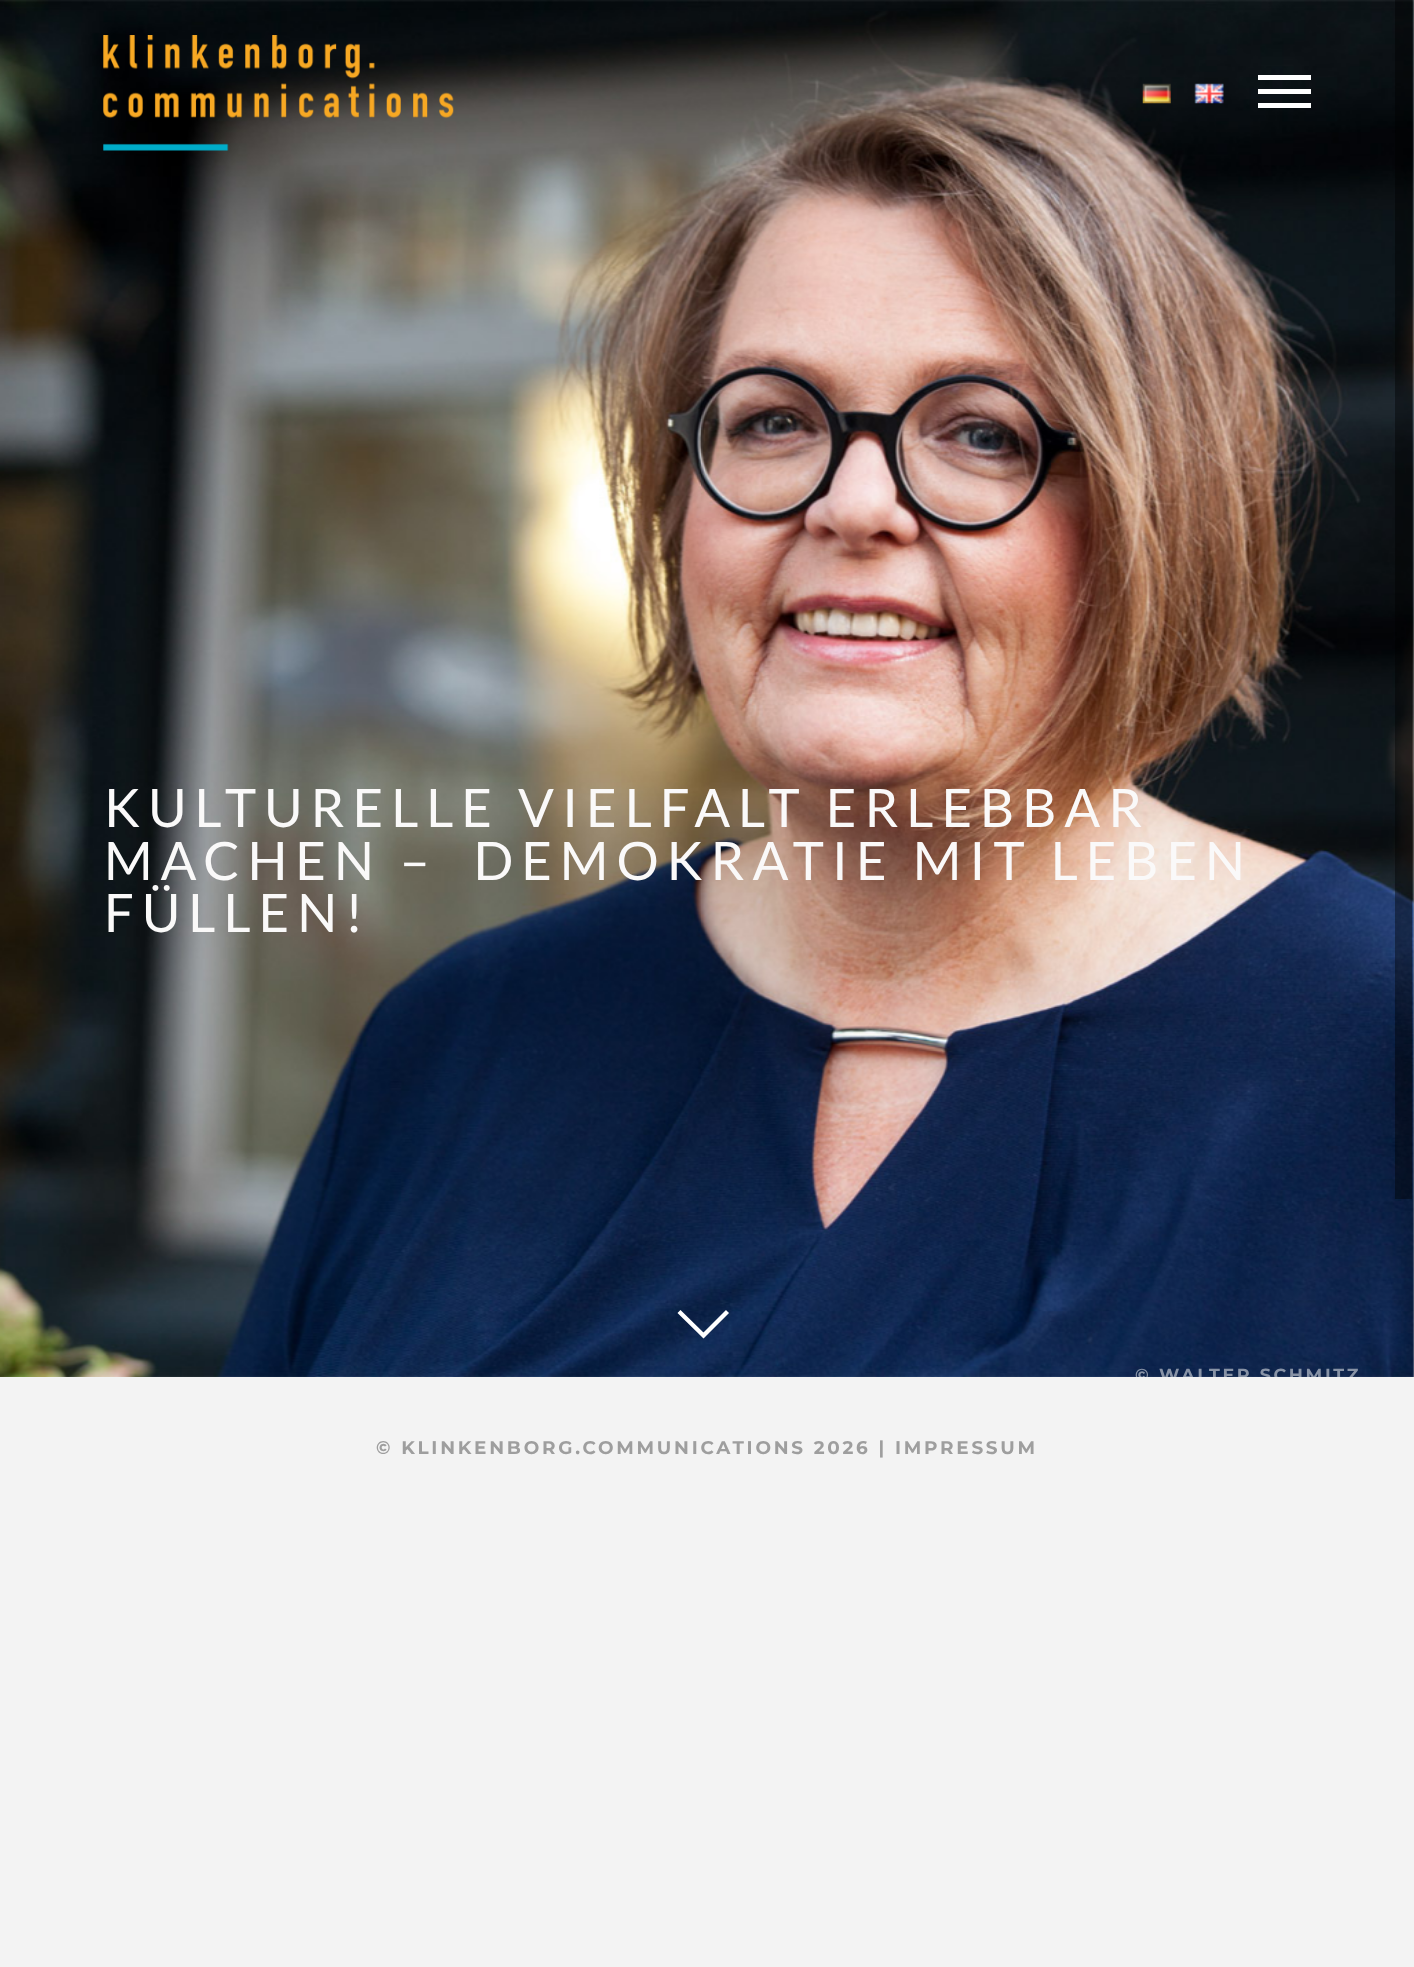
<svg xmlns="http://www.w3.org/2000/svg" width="1414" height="1967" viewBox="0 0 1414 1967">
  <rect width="100%" height="100%" fill="rgb(243,243,243)"/>
  <image x="0" y="0" width="1414" height="1377" href="pic4.png"/>
  <image x="103" y="35" width="351" height="116" href="pic1.png"/>
  <image x="1142" y="83" width="29" height="21" href="pic2.png"/>
  <image x="1194" y="83" width="30" height="21" href="pic3.png"/>
  <rect x="1258" y="89" width="53" height="5" fill="rgb(255,255,255)"/>
  <rect x="1258" y="75" width="53" height="5" fill="rgb(255,255,255)"/>
  <rect x="1258" y="103" width="53" height="5" fill="rgb(255,255,255)"/>
  <g font-family="Lato" font-size="52.9" letter-spacing="7.9" fill="rgb(250,249,249)">
    <text xml:space="preserve"><tspan x="104" y="827">KULTURELLE VIELFALT ERLEBBAR</tspan><tspan x="104" y="880">MACHEN –  DEMOKRATIE MIT LEBEN</tspan><tspan x="104" y="932">FÜLLEN!</tspan></text>
  </g>
  <path d="M727.5 1311.5L703.5 1335.5L679 1311.5" fill="none" stroke="rgb(255,255,255)" stroke-width="4.3"/>
  <text x="1135" y="1381" font-family="Montserrat" font-size="17.5" font-weight="100" letter-spacing="2.6" fill="rgb(136,147,166)">© WALTER SCHMITZ</text>
  <rect x="1395" y="0" width="17" height="1199" fill="rgba(0,0,0,0.4)"/>
  <rect x="1136" y="1377" width="223" height="5" fill="rgb(243,243,243)"/>
  <text x="376" y="1454" font-family="Montserrat" font-size="18.4" font-weight="100" letter-spacing="2.75" fill="rgb(158,158,158)">© KLINKENBORG.COMMUNICATIONS 2026 | IMPRESSUM</text>
</svg>
